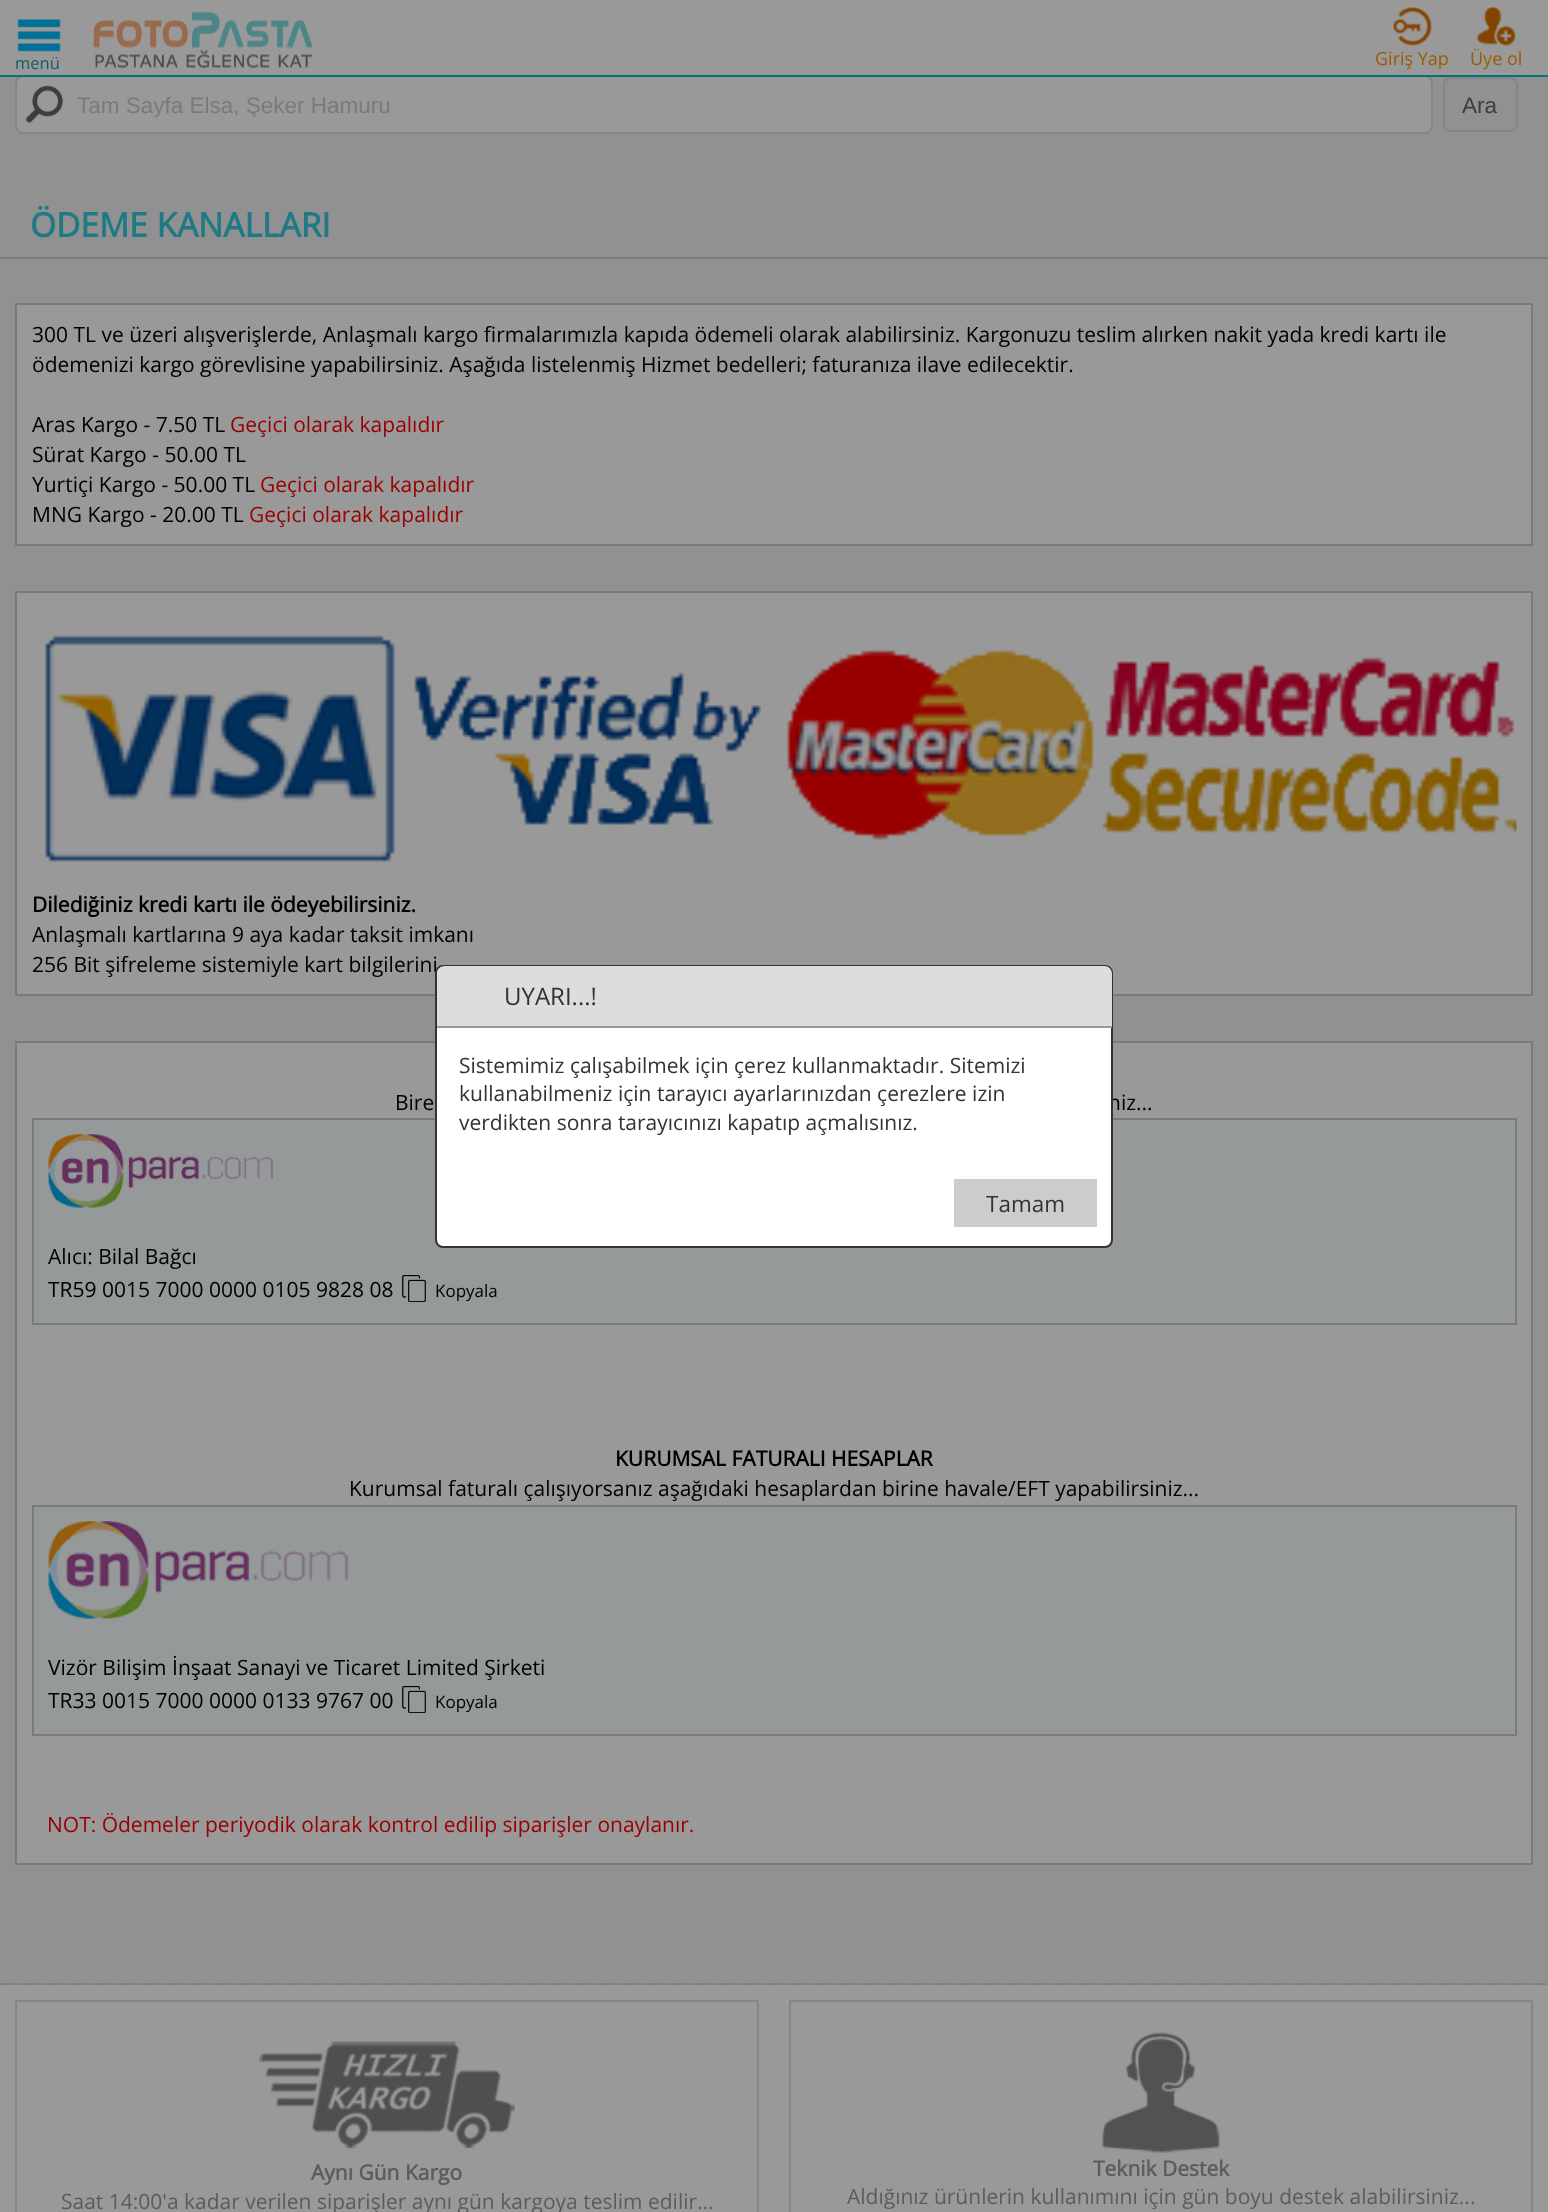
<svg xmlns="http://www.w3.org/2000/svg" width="1548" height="2212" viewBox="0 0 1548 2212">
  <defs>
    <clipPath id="clip1"><rect x="77" y="92" width="1323" height="25"/></clipPath>
  </defs>
  <rect width="100%" height="100%" fill="rgb(153,153,153)"/>
  <rect x="0" y="77" width="1548" height="1906" fill="rgb(145,145,145)"/>
  <rect x="15" y="75" width="1418" height="59" rx="8" fill="rgb(153,153,153)"/>
  <image x="25" y="85" width="38" height="38" href="pic5.png"/>
  <rect x="16" y="76" width="1416" height="57" rx="7" fill="none" stroke="rgb(133,133,133)" stroke-width="2"/>
  <rect x="0" y="75" width="1548" height="2" fill="rgb(4,115,119)"/>
  <image x="17" y="19" width="44" height="33" href="pic1.png"/>
  <text x="15" y="69" font-family="Open Sans" font-size="16.5" fill="rgb(20,92,102)">menü</text>
  <image x="93" y="11" width="220" height="58" href="pic2.png"/>
  <image x="1393" y="7" width="39" height="39" href="pic3.png"/>
  <text x="1375" y="65" font-family="Open Sans" font-size="18" fill="rgb(153,92,0)">Giriş Yap</text>
  <image x="1477" y="7" width="39" height="39" href="pic4.png"/>
  <text x="1470" y="65" font-family="Open Sans" font-size="18" fill="rgb(153,92,0)">Üye ol</text>
  <g clip-path="url(#clip1)">
    <text x="77" y="113" font-family="Liberation Sans" font-size="22.5" fill="rgb(122,122,122)">Tam Sayfa Elsa, Şeker Hamuru</text>
  </g>
  <rect x="1444" y="78" width="73" height="53" rx="7" fill="none" stroke="rgb(133,133,133)" stroke-width="2"/>
  <text x="1462" y="113" font-family="Liberation Sans" font-size="22.5" fill="rgb(61,61,61)">Ara</text>
  <rect x="0" y="257" width="1548" height="2" fill="rgb(122,122,122)"/>
  <text x="30" y="237" font-family="Open Sans" font-size="33.5" font-weight="bold" fill="rgb(31,122,133)">ÖDEME KANALLARI</text>
  <rect x="16" y="304" width="1516" height="241" fill="rgb(153,153,153)" stroke="rgb(122,122,122)" stroke-width="2"/>
  <g font-family="Open Sans" font-size="21" fill="rgb(0,0,0)">
    <text>
      <tspan x="32" y="342">300 TL ve üzeri alışverişlerde, Anlaşmalı kargo firmalarımızla kapıda ödemeli olarak alabilirsiniz. Kargonuzu teslim alırken nakit yada kredi kartı ile</tspan>
      <tspan x="32" y="372">ödemenizi kargo görevlisine yapabilirsiniz. Aşağıda listelenmiş Hizmet bedelleri; faturanıza ilave edilecektir.</tspan>
    </text>
    <text x="32" y="432">Aras Kargo - 7.50 TL</text>
  </g>
  <text x="230" y="432" font-family="Open Sans" font-size="21" fill="rgb(153,0,0)">Geçici olarak kapalıdır</text>
  <g font-family="Open Sans" font-size="21" fill="rgb(0,0,0)">
    <text>
      <tspan x="32" y="462">Sürat Kargo - 50.00 TL</tspan>
      <tspan x="32" y="492">Yurtiçi Kargo - 50.00 TL</tspan>
    </text>
  </g>
  <text x="260" y="492" font-family="Open Sans" font-size="21" fill="rgb(153,0,0)">Geçici olarak kapalıdır</text>
  <text x="32" y="522" font-family="Open Sans" font-size="21" fill="rgb(0,0,0)">MNG Kargo - 20.00 TL</text>
  <text x="249" y="522" font-family="Open Sans" font-size="21" fill="rgb(153,0,0)">Geçici olarak kapalıdır</text>
  <rect x="16" y="592" width="1516" height="403" fill="rgb(153,153,153)" stroke="rgb(122,122,122)" stroke-width="2"/>
  <image x="45" y="635" width="1472" height="227" href="pic6.png"/>
  <text x="32" y="912" font-family="Open Sans" font-size="21" font-weight="bold" fill="rgb(0,0,0)">Dilediğiniz kredi kartı ile ödeyebilirsiniz.</text>
  <g font-family="Open Sans" font-size="21" fill="rgb(0,0,0)">
    <text>
      <tspan x="32" y="942">Anlaşmalı kartlarına 9 aya kadar taksit imkanı</tspan>
      <tspan x="32" y="972">256 Bit şifreleme sistemiyle kart bilgilerini</tspan>
    </text>
  </g>
  <rect x="16" y="1042" width="1516" height="822" fill="rgb(153,153,153)" stroke="rgb(122,122,122)" stroke-width="2"/>
  <g font-family="Open Sans" font-size="21" fill="rgb(0,0,0)">
    <text x="395" y="1110">Bire</text>
    <text x="1108" y="1110">niz...</text>
  </g>
  <rect x="33" y="1119" width="1483" height="205" fill="rgb(149,153,153)" stroke="rgb(122,122,122)" stroke-width="2"/>
  <image x="48" y="1134" width="225" height="74" href="pic7.png"/>
  <g font-family="Open Sans" font-size="21" fill="rgb(0,0,0)">
    <text>
      <tspan x="48" y="1264">Alıcı: Bilal Bağcı</tspan>
      <tspan x="48" y="1297">TR59 0015 7000 0000 0105 9828 08</tspan>
    </text>
  </g>
  <image x="402" y="1275" width="24" height="27" href="pic8.png"/>
  <text x="435" y="1297" font-family="Open Sans" font-size="17" fill="rgb(0,0,0)">Kopyala</text>
  <text x="615" y="1466" font-family="Open Sans" font-size="21" font-weight="bold" fill="rgb(0,0,0)">KURUMSAL FATURALI HESAPLAR</text>
  <text x="349" y="1496" font-family="Open Sans" font-size="21" fill="rgb(0,0,0)">Kurumsal faturalı çalışıyorsanız aşağıdaki hesaplardan birine havale/EFT yapabilirsiniz...</text>
  <rect x="33" y="1506" width="1483" height="229" fill="rgb(149,153,153)" stroke="rgb(122,122,122)" stroke-width="2"/>
  <image x="48" y="1521" width="300" height="98" href="pic9.png"/>
  <g font-family="Open Sans" font-size="21" fill="rgb(0,0,0)">
    <text>
      <tspan x="48" y="1675">Vizör Bilişim İnşaat Sanayi ve Ticaret Limited Şirketi</tspan>
      <tspan x="48" y="1708">TR33 0015 7000 0000 0133 9767 00</tspan>
    </text>
  </g>
  <image x="402" y="1686" width="24" height="27" href="pic8.png"/>
  <text x="435" y="1708" font-family="Open Sans" font-size="17" fill="rgb(0,0,0)">Kopyala</text>
  <text x="47" y="1832" font-family="Open Sans" font-size="21" fill="rgb(153,0,0)">NOT: Ödemeler periyodik olarak kontrol edilip siparişler onaylanır.</text>
  <path d="M0 1984H1548" fill="none" stroke="rgb(92,92,92)" stroke-width="1.5" stroke-dasharray="1.5 1.5"/>
  <rect x="16" y="2001" width="742" height="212" fill="none" stroke="rgb(133,133,133)" stroke-width="2"/>
  <image x="259" y="2041" width="256" height="108" href="pic10.png"/>
  <text x="311" y="2180" font-family="Open Sans" font-size="21" font-weight="bold" fill="rgb(92,92,92)">Aynı Gün Kargo</text>
  <text x="61" y="2209" font-family="Open Sans" font-size="21" fill="rgb(92,92,92)">Saat 14:00'a kadar verilen siparişler aynı gün kargoya teslim edilir...</text>
  <rect x="790" y="2001" width="742" height="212" fill="none" stroke="rgb(133,133,133)" stroke-width="2"/>
  <image x="1102" y="2032" width="118" height="121" href="pic11.png"/>
  <text x="1093" y="2176" font-family="Open Sans" font-size="21" font-weight="bold" fill="rgb(92,92,92)">Teknik Destek</text>
  <text x="847" y="2204" font-family="Open Sans" font-size="21" fill="rgb(92,92,92)">Aldığınız ürünlerin kullanımını için gün boyu destek alabilirsiniz...</text>
  <rect x="436" y="966" width="676" height="281" rx="7" fill="rgb(255,255,255)" stroke="rgb(51,51,51)" stroke-width="2"/>
  <path d="M445 966H1104C1108.5 966 1112 969.5 1112 974V1028H437V974C437 969.5 440.5 966 445 966Z" fill="rgb(221,221,221)"/>
  <rect x="437" y="1026" width="675" height="2" fill="rgb(153,153,153)"/>
  <text x="504" y="1005" font-family="Open Sans" font-size="24" fill="rgb(51,51,51)">UYARI...!</text>
  <g font-family="Open Sans" font-size="21" fill="rgb(51,51,51)">
    <text>
      <tspan x="459" y="1073">Sistemimiz çalışabilmek için çerez kullanmaktadır. Sitemizi</tspan>
      <tspan x="459" y="1101">kullanabilmeniz için tarayıcı ayarlarınızdan çerezlere izin</tspan>
      <tspan x="459" y="1130">verdikten sonra tarayıcınızı kapatıp açmalısınız.</tspan>
    </text>
  </g>
  <rect x="954" y="1179" width="143" height="48" fill="rgb(204,204,204)"/>
  <text x="986" y="1212" font-family="Open Sans" font-size="22.5" fill="rgb(51,51,51)">Tamam</text>
</svg>
